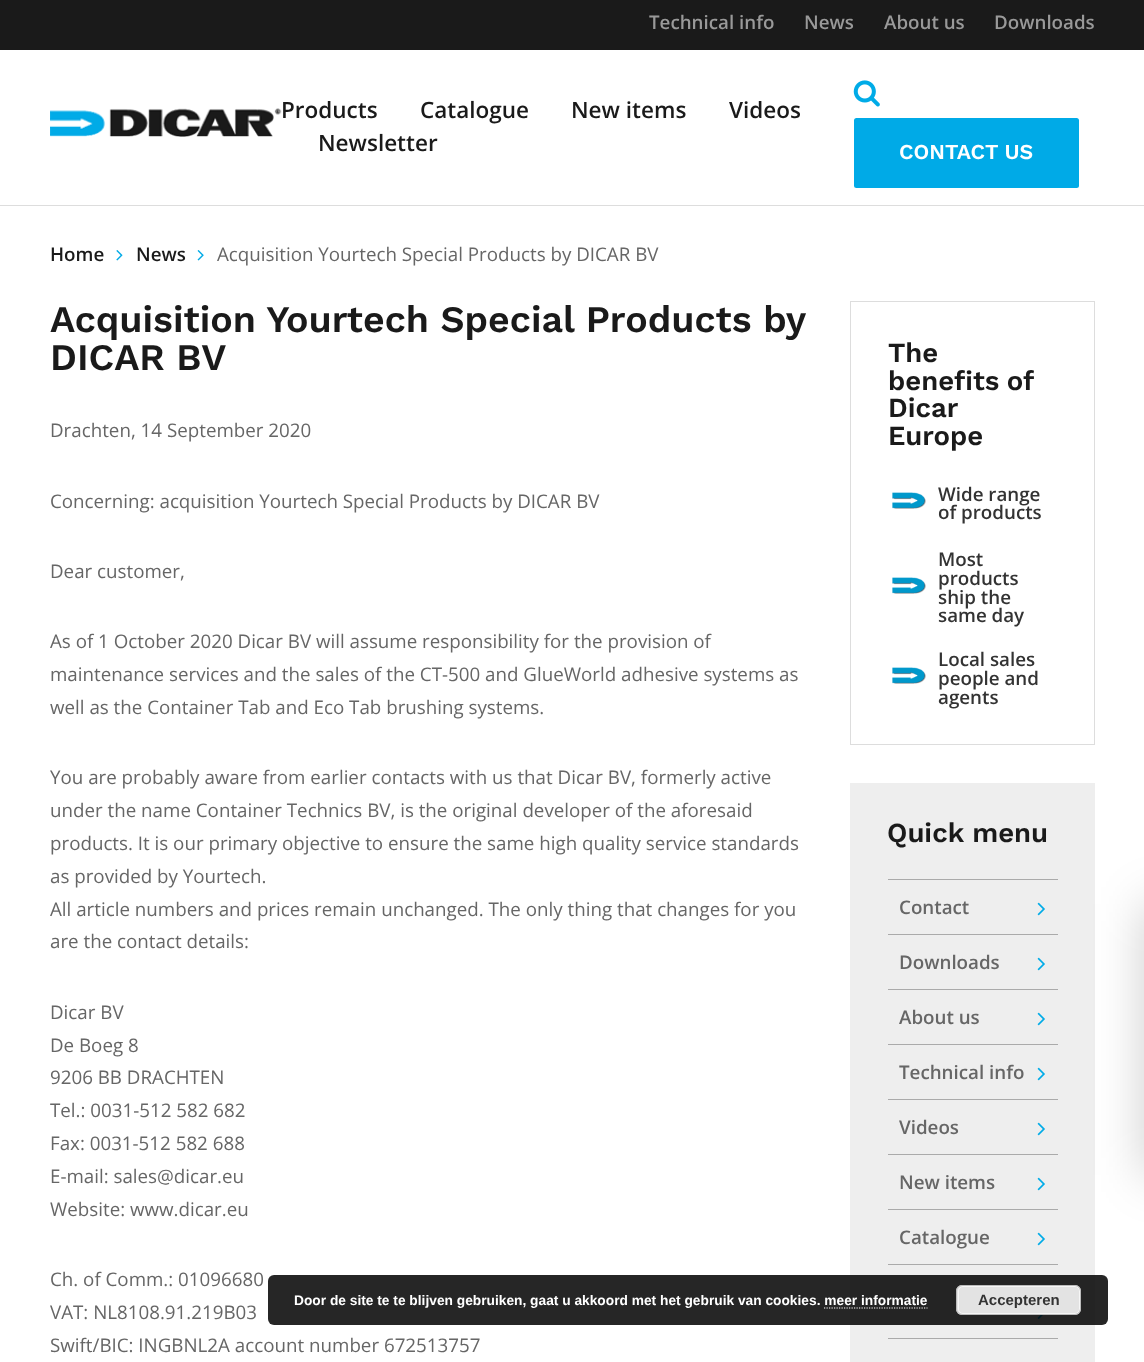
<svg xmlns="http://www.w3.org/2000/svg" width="1144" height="1362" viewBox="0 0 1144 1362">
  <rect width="100%" height="100%" fill="rgb(255,255,255)"/>
  <rect x="0" y="0" width="1144" height="50" fill="rgb(26,26,26)"/>
  <g font-family="Open Sans" font-size="18.75" font-weight="600" fill="rgb(153,153,153)">
    <text x="649" y="29">Technical info</text>
    <text x="804" y="29">News</text>
    <text x="884" y="29">About us</text>
    <text x="994" y="29">Downloads</text>
  </g>
  <rect x="0" y="205" width="1144" height="1" fill="rgb(221,221,221)"/>
  <image x="50" y="108" width="232" height="29" href="pic1.png"/>
  <g font-family="Open Sans" font-size="22.5" font-weight="600" fill="rgb(26,26,26)">
    <text x="281" y="118">Products</text>
    <text x="420" y="118">Catalogue</text>
    <text x="571" y="118">New items</text>
    <text x="729" y="118">Videos</text>
    <text x="318" y="151">Newsletter</text>
  </g>
  <image x="853" y="80" width="27" height="27" href="pic2.png"/>
  <rect x="854" y="118" width="225" height="70" rx="2.5" fill="rgb(0,170,231)"/>
  <text x="899" y="159" font-family="Work Sans" font-size="21.25" font-weight="600" fill="rgb(255,255,255)">CONTACT US</text>
  <text x="50" y="261" font-family="Open Sans" font-size="18.75" font-weight="600" fill="rgb(26,26,26)">Home</text>
  <image x="116" y="250" width="7" height="11" href="pic3.png"/>
  <text x="136" y="261" font-family="Open Sans" font-size="18.75" font-weight="600" fill="rgb(26,26,26)">News</text>
  <image x="197" y="250" width="7" height="11" href="pic4.png"/>
  <text x="217" y="261" font-family="Open Sans" font-size="18.75" fill="rgb(102,102,102)">Acquisition Yourtech Special Products by DICAR BV</text>
  <g font-family="Work Sans" font-size="37.5" font-weight="600" fill="rgb(26,26,26)">
    <text>
      <tspan x="50" y="332">Acquisition Yourtech Special Products by</tspan>
      <tspan x="50" y="370">DICAR BV</tspan>
    </text>
  </g>
  <g font-family="Open Sans" font-size="18.75" fill="rgb(102,102,102)">
    <text x="50" y="437">Drachten, 14 September 2020</text>
    <text x="50" y="508">Concerning: acquisition Yourtech Special Products by DICAR BV</text>
    <text x="50" y="578">Dear customer,</text>
    <text>
      <tspan x="50" y="648">As of 1 October 2020 Dicar BV will assume responsibility for the provision of</tspan>
      <tspan x="50" y="681">maintenance services and the sales of the CT-500 and GlueWorld adhesive systems as</tspan>
      <tspan x="50" y="714">well as the Container Tab and Eco Tab brushing systems.</tspan>
    </text>
    <text>
      <tspan x="50" y="784">You are probably aware from earlier contacts with us that Dicar BV, formerly active</tspan>
      <tspan x="50" y="817">under the name Container Technics BV, is the original developer of the aforesaid</tspan>
      <tspan x="50" y="850">products. It is our primary objective to ensure the same high quality service standards</tspan>
      <tspan x="50" y="883">as provided by Yourtech.</tspan>
      <tspan x="50" y="916">All article numbers and prices remain unchanged. The only thing that changes for you</tspan>
      <tspan x="50" y="948">are the contact details:</tspan>
    </text>
    <text>
      <tspan x="50" y="1019">Dicar BV</tspan>
      <tspan x="50" y="1052">De Boeg 8</tspan>
      <tspan x="50" y="1084">9206 BB DRACHTEN</tspan>
      <tspan x="50" y="1117">Tel.: 0031-512 582 682</tspan>
      <tspan x="50" y="1150">Fax: 0031-512 582 688</tspan>
      <tspan x="50" y="1183">E-mail: sales@dicar.eu</tspan>
      <tspan x="50" y="1216">Website: www.dicar.eu</tspan>
    </text>
    <text>
      <tspan x="50" y="1286">Ch. of Comm.: 01096680</tspan>
      <tspan x="50" y="1319">VAT: NL8108.91.219B03</tspan>
      <tspan x="50" y="1352">Swift/BIC: INGBNL2A account number 672513757</tspan>
    </text>
  </g>
  <rect x="850.5" y="301.5" width="244" height="443" fill="none" stroke="rgb(221,221,221)"/>
  <g font-family="Work Sans" font-size="27.5" font-weight="600" fill="rgb(26,26,26)">
    <text>
      <tspan x="888" y="362">The</tspan>
      <tspan x="888" y="390" word-spacing="-1">benefits of</tspan>
      <tspan x="888" y="417">Dicar</tspan>
      <tspan x="888" y="445">Europe</tspan>
    </text>
  </g>
  <image x="892" y="492" width="34" height="17" href="pic5.png"/>
  <g font-family="Open Sans" font-size="18.75" font-weight="600" fill="rgb(51,51,51)">
    <text>
      <tspan x="938" y="501">Wide range</tspan>
      <tspan x="938" y="519">of products</tspan>
    </text>
  </g>
  <image x="892" y="577" width="34" height="17" href="pic6.png"/>
  <g font-family="Open Sans" font-size="18.75" font-weight="600" fill="rgb(51,51,51)">
    <text>
      <tspan x="938" y="566">Most</tspan>
      <tspan x="938" y="585">products</tspan>
      <tspan x="938" y="604">ship the</tspan>
      <tspan x="938" y="622">same day</tspan>
    </text>
  </g>
  <image x="892" y="667" width="34" height="17" href="pic5.png"/>
  <g font-family="Open Sans" font-size="18.75" font-weight="600" fill="rgb(51,51,51)">
    <text>
      <tspan x="938" y="666">Local sales</tspan>
      <tspan x="938" y="685">people and</tspan>
      <tspan x="938" y="704">agents</tspan>
    </text>
  </g>
  <rect x="850" y="783" width="245" height="579" fill="rgb(238,238,238)"/>
  <text x="887" y="842" font-family="Work Sans" font-size="27.5" font-weight="600" fill="rgb(26,26,26)">Quick menu</text>
  <rect x="888" y="879" width="170" height="1" fill="rgb(170,170,170)"/>
  <rect x="888" y="934" width="170" height="1" fill="rgb(170,170,170)"/>
  <text x="899" y="914" font-family="Open Sans" font-size="18.75" font-weight="600" fill="rgb(102,102,102)">Contact</text>
  <image x="1037" y="902" width="8" height="14" href="pic7.png"/>
  <rect x="888" y="989" width="170" height="1" fill="rgb(170,170,170)"/>
  <text x="899" y="969" font-family="Open Sans" font-size="18.75" font-weight="600" fill="rgb(102,102,102)">Downloads</text>
  <image x="1037" y="957" width="8" height="14" href="pic7.png"/>
  <rect x="888" y="1044" width="170" height="1" fill="rgb(170,170,170)"/>
  <text x="899" y="1024" font-family="Open Sans" font-size="18.75" font-weight="600" fill="rgb(102,102,102)">About us</text>
  <image x="1037" y="1012" width="8" height="14" href="pic7.png"/>
  <rect x="888" y="1099" width="170" height="1" fill="rgb(170,170,170)"/>
  <text x="899" y="1079" font-family="Open Sans" font-size="18.75" font-weight="600" fill="rgb(102,102,102)">Technical info</text>
  <image x="1037" y="1067" width="8" height="14" href="pic7.png"/>
  <rect x="888" y="1154" width="170" height="1" fill="rgb(170,170,170)"/>
  <text x="899" y="1134" font-family="Open Sans" font-size="18.75" font-weight="600" fill="rgb(102,102,102)">Videos</text>
  <image x="1037" y="1122" width="8" height="14" href="pic7.png"/>
  <rect x="888" y="1209" width="170" height="1" fill="rgb(170,170,170)"/>
  <text x="899" y="1189" font-family="Open Sans" font-size="18.75" font-weight="600" fill="rgb(102,102,102)">New items</text>
  <image x="1037" y="1177" width="8" height="14" href="pic7.png"/>
  <rect x="888" y="1264" width="170" height="1" fill="rgb(170,170,170)"/>
  <text x="899" y="1244" font-family="Open Sans" font-size="18.75" font-weight="600" fill="rgb(102,102,102)">Catalogue</text>
  <image x="1037" y="1232" width="8" height="14" href="pic7.png"/>
  <rect x="888" y="1338" width="170" height="1" fill="rgb(170,170,170)"/>
  <image x="1037" y="1315" width="6" height="4" href="pic8.png"/>
  <rect x="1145" y="904" width="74" height="271" fill="rgba(0,0,0,0.2)" filter="blur(25px)"/>
  <rect x="268" y="1275" width="840" height="50" rx="6" fill="rgba(0,0,0,0.85)"/>
  <text x="294" y="1305" font-family="Liberation Sans" font-size="13.75" font-weight="bold" fill="rgb(255,255,255)">Door de site te te blijven gebruiken, gaat u akkoord met het gebruik van cookies. meer informatie</text>
  <rect x="956" y="1285" width="125" height="30" rx="6" fill="rgb(227,227,227)"/>
  <rect x="958.5" y="1286.5" width="121" height="27" rx="4.5" fill="none" stroke="rgb(246,246,246)"/>
  <rect x="956.5" y="1285.5" width="124" height="29" rx="5.5" fill="none" stroke="rgb(187,187,187)"/>
  <text x="978" y="1305" font-family="Liberation Sans" font-size="15" font-weight="bold" fill="rgb(51,51,51)">Accepteren</text>
  <path d="M824 1308H927.5" fill="none" stroke="rgb(255,255,255)" stroke-width="1.2" stroke-dasharray="1.25 1.25"/>
</svg>
